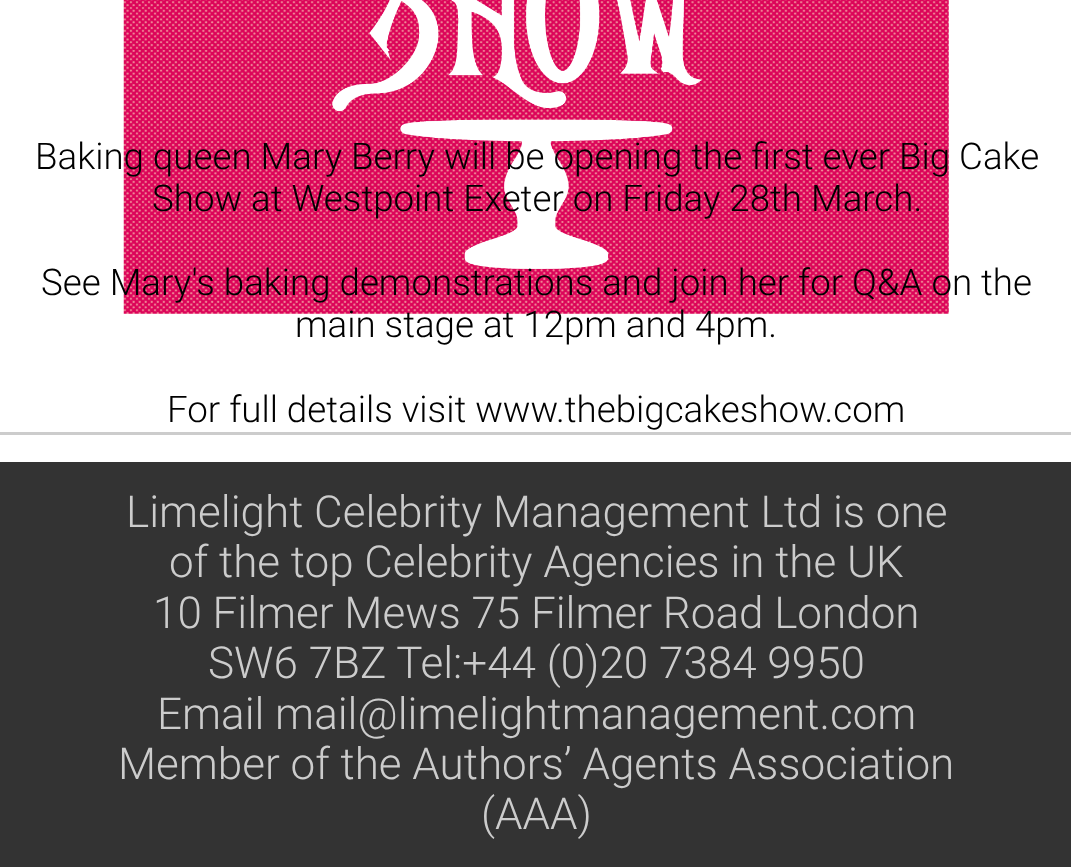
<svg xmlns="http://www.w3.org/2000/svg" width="1071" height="867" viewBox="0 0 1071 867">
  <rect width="100%" height="100%" fill="rgb(255,255,255)"/>
  <rect x="0" y="432" width="1071" height="3" fill="rgb(204,204,204)"/>
  <image x="123" y="0" width="826" height="314" href="pic1.png"/>
  <g font-family="Roboto" font-size="36.7" font-weight="300" fill="rgb(0,0,0)">
    <text x="35" y="169">Baking queen Mary Berry will be opening the first ever Big Cake</text>
    <text x="152" y="211">Show at Westpoint Exeter on Friday 28th March.</text>
    <text x="41" y="295">See Mary's baking demonstrations and join her for Q&amp;A on the</text>
    <text x="295" y="337">main stage at 12pm and 4pm.</text>
    <text x="167" y="422">For full details visit www.thebigcakeshow.com</text>
  </g>
  <rect x="0" y="462" width="1071" height="405" fill="rgb(51,51,51)"/>
  <g font-family="Roboto" font-size="44" font-weight="300" fill="rgb(204,204,204)">
    <text x="126" y="527">Limelight Celebrity Management Ltd is one</text>
    <text x="169" y="577">of the top Celebrity Agencies in the UK</text>
    <text x="153" y="628">10 Filmer Mews 75 Filmer Road London</text>
    <text x="208" y="678">SW6 7BZ Tel:+44 (0)20 7384 9950</text>
    <text x="157" y="729">Email mail@limelightmanagement.com</text>
    <text x="118" y="779">Member of the Authors’ Agents Association</text>
    <text x="481" y="829">(AAA)</text>
  </g>
</svg>
